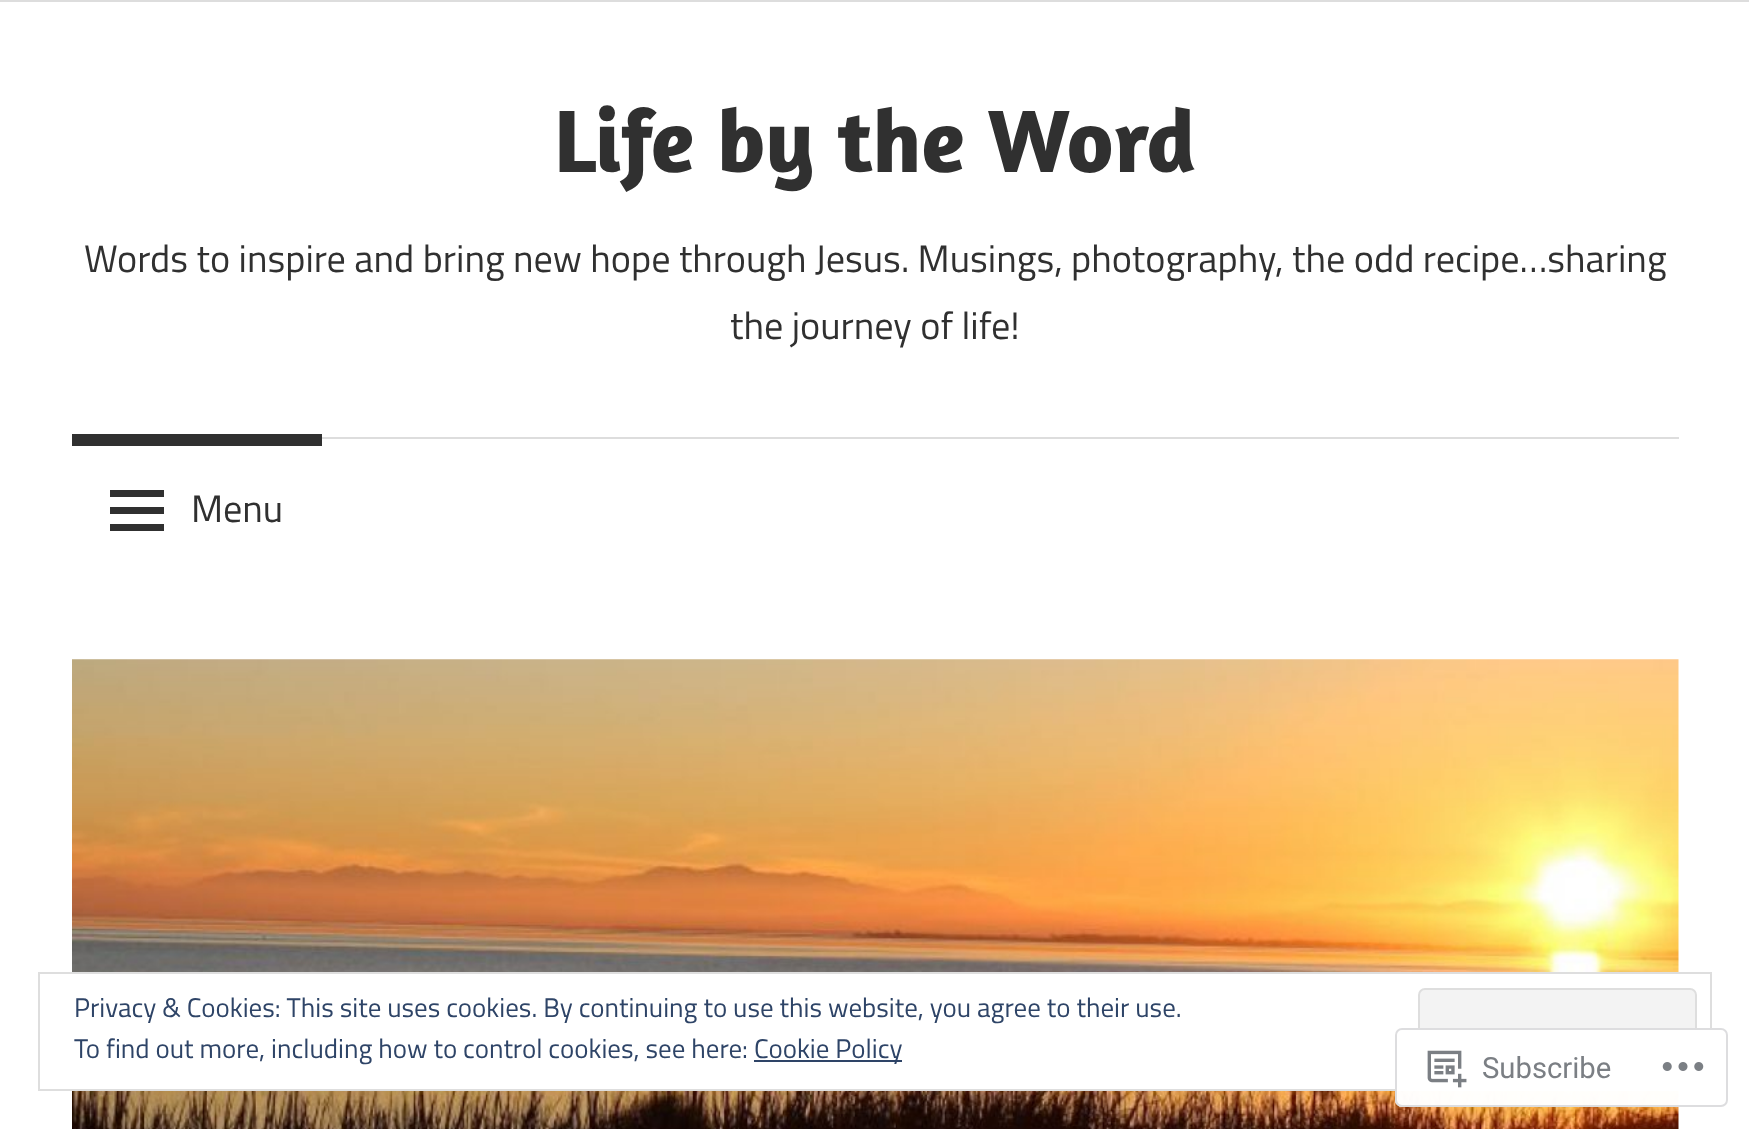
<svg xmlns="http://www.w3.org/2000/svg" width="1749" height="1129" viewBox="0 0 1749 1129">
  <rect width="100%" height="100%" fill="rgb(255,255,255)"/>
  <rect x="0" y="0" width="1749" height="2" fill="rgb(221,221,221)"/>
  <text x="554" y="172" font-family="Amaranth" font-size="90" font-weight="bold" fill="rgb(48,48,48)">Life by the Word</text>
  <g font-family="Titillium Web" font-size="38.25" fill="rgb(48,48,48)">
    <text x="84" y="272">Words to inspire and bring new hope through Jesus. Musings, photography, the odd recipe…sharing</text>
    <text x="730" y="339">the journey of life!</text>
  </g>
  <rect x="322" y="437" width="1357" height="2" fill="rgb(221,221,221)"/>
  <rect x="72" y="434" width="250" height="12" fill="rgb(48,48,48)"/>
  <path d="M110 531V524H164V531ZM110 490H164V497H110ZM110 514V507H164V514Z" fill="rgb(48,48,48)"/>
  <text x="191" y="522" font-family="Titillium Web" font-size="38.25" fill="rgb(48,48,48)">Menu</text>
  <image x="72" y="659" width="1607" height="470" href="pic1.png"/>
  <rect x="72" y="974" width="1607" height="115" fill="rgb(255,255,255)"/>
  <rect x="39" y="973" width="1672" height="117" fill="none" stroke="rgb(222,222,222)" stroke-width="2"/>
  <text x="74" y="1017" font-family="Titillium Web" font-size="27" fill="rgb(46,68,103)">Privacy &amp; Cookies: This site uses cookies. By continuing to use this website, you agree to their use.</text>
  <rect x="1419" y="989" width="277" height="86" rx="6" fill="rgb(243,243,243)" stroke="rgb(222,222,222)" stroke-width="2"/>
  <text x="74" y="1058" font-family="Titillium Web" font-size="27" fill="rgb(46,68,103)">To find out more, including how to control cookies, see here:</text>
  <rect x="754" y="1060" width="148" height="2" fill="rgb(46,68,103)"/>
  <text x="754" y="1058" font-family="Titillium Web" font-size="27" fill="rgb(46,68,103)">Cookie Policy</text>
  <rect x="1395" y="1028" width="333" height="79" rx="7" fill="rgba(255,255,255,0.98)"/>
  <rect x="1396" y="1029" width="331" height="77" rx="6" fill="none" stroke="rgba(220,220,222,0.98)" stroke-width="2"/>
  <image x="1427" y="1050" width="40" height="38" href="pic2.png"/>
  <text x="1482" y="1078" font-family="Roboto" font-size="29.25" fill="rgb(123,127,132)">Subscribe</text>
  <image x="1662" y="1062" width="42" height="9" href="pic3.png"/>
</svg>
